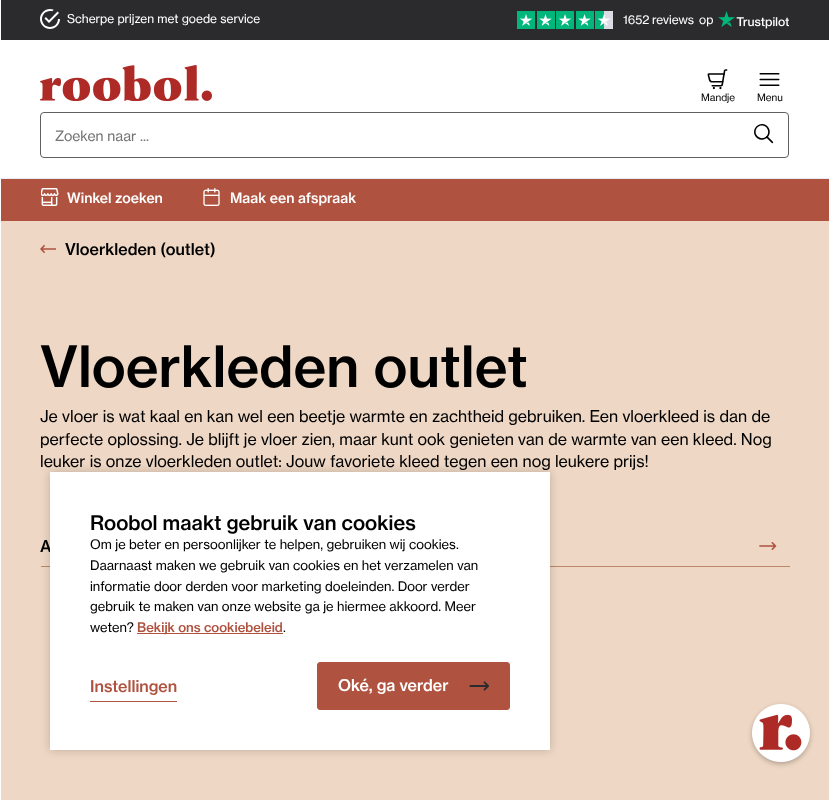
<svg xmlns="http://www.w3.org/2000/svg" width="829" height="800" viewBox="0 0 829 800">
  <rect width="100%" height="100%" fill="rgb(255,255,255)"/>
  <rect x="1" y="0" width="828" height="40" fill="rgb(43,43,45)"/>
  <image x="40" y="9" width="20" height="20" href="pic1.png"/>
  <text x="67" y="23" font-family="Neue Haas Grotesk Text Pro" font-size="12" fill="rgb(255,255,255)">Scherpe prijzen met goede service</text>
  <image x="517" y="11" width="96" height="18" href="pic2.png"/>
  <g font-family="Neue Haas Grotesk Text Pro" font-size="12" fill="rgb(255,255,255)">
    <text x="623" y="24">1652</text>
    <text x="652" y="24">reviews</text>
    <text x="699" y="24">op</text>
  </g>
  <image x="718" y="11" width="71" height="18" href="pic3.png"/>
  <rect x="0" y="178" width="829" height="1" fill="rgb(233,235,240)"/>
  <image x="40" y="65" width="172" height="36" href="pic4.png"/>
  <image x="707" y="69" width="21" height="21" href="pic5.png"/>
  <text x="701" y="101" font-family="Neue Haas Grotesk Text Pro" font-size="10" fill="rgb(0,0,0)">Mandje</text>
  <image x="759" y="73" width="21" height="13" href="pic6.png"/>
  <text x="757" y="101" font-family="Neue Haas Grotesk Text Pro" font-size="10" fill="rgb(0,0,0)">Menu</text>
  <rect x="40.5" y="112.5" width="748" height="45" rx="3.5" fill="none" stroke="rgb(96,96,98)"/>
  <text x="55" y="141" font-family="Neue Haas Grotesk Text Pro" font-size="14" fill="rgb(116,116,116)">Zoeken naar ...</text>
  <image x="754" y="124" width="20" height="20" href="pic7.png"/>
  <rect x="1" y="179" width="828" height="42" fill="rgb(175,83,64)"/>
  <image x="41" y="188" width="18" height="18" href="pic8.png"/>
  <text x="67" y="203" font-family="Neue Haas Grotesk Text Pro" font-size="14" font-weight="500" fill="rgb(255,255,255)">Winkel zoeken</text>
  <image x="203" y="188" width="17" height="18" href="pic9.png"/>
  <text x="230" y="203" font-family="Neue Haas Grotesk Text Pro" font-size="14" font-weight="500" fill="rgb(255,255,255)">Maak een afspraak</text>
  <rect x="1" y="221" width="828" height="579" fill="rgb(238,215,196)"/>
  <image x="40" y="245" width="16" height="8" href="pic10.png"/>
  <text x="65" y="255" font-family="Neue Haas Grotesk Text Pro" font-size="16" font-weight="500" fill="rgb(0,0,0)">Vloerkleden (outlet)</text>
  <text x="40" y="387" font-family="Neue Haas Grotesk Text Pro" font-size="56" font-weight="500" fill="rgb(0,0,0)">Vloerkleden outlet</text>
  <g font-family="Neue Haas Grotesk Text Pro" font-size="16" fill="rgb(0,0,0)">
    <text>
      <tspan x="40" y="422">Je vloer is wat kaal en kan wel een beetje warmte en zachtheid gebruiken. Een vloerkleed is dan de</tspan>
      <tspan x="40" y="445">perfecte oplossing. Je blijft je vloer zien, maar kunt ook genieten van de warmte van een kleed. Nog</tspan>
      <tspan x="40" y="467">leuker is onze vloerkleden outlet: Jouw favoriete kleed tegen een nog leukere prijs!</tspan>
    </text>
  </g>
  <rect x="41" y="566" width="749" height="1" fill="rgb(188,135,109)"/>
  <text x="40" y="552" font-family="Neue Haas Grotesk Text Pro" font-size="16" font-weight="500" fill="rgb(0,0,0)">A</text>
  <image x="759" y="542" width="18" height="8" href="pic11.png"/>
  <rect x="50" y="472" width="500" height="278" fill="rgba(0,0,0,0.2)" filter="blur(5px)"/>
  <rect x="50" y="472" width="500" height="278" fill="rgb(255,255,255)"/>
  <text x="90" y="530" font-family="Neue Haas Grotesk Text Pro" font-size="20" font-weight="500" fill="rgb(0,0,0)">Roobol maakt gebruik van cookies</text>
  <g font-family="Neue Haas Grotesk Text Pro" font-size="13" fill="rgb(0,0,0)">
    <text>
      <tspan x="90" y="549">Om je beter en persoonlijker te helpen, gebruiken wij cookies.</tspan>
      <tspan x="90" y="570">Daarnaast maken we gebruik van cookies en het verzamelen van</tspan>
      <tspan x="90" y="591">informatie door derden voor marketing doeleinden. Door verder</tspan>
      <tspan x="90" y="611">gebruik te maken van onze website ga je hiermee akkoord. Meer</tspan>
      <tspan x="90" y="632">weten?</tspan>
    </text>
  </g>
  <rect x="137" y="633" width="146" height="1" fill="rgb(175,83,64)"/>
  <text x="137" y="632" font-family="Neue Haas Grotesk Text Pro" font-size="13" font-weight="500" fill="rgb(175,83,64)">Bekijk ons cookiebeleid</text>
  <text x="283" y="632" font-family="Neue Haas Grotesk Text Pro" font-size="13" fill="rgb(0,0,0)">.</text>
  <rect x="90" y="701" width="87" height="1" fill="rgb(175,83,64)"/>
  <text x="90" y="692" font-family="Neue Haas Grotesk Text Pro" font-size="16" font-weight="500" fill="rgb(175,83,64)">Instellingen</text>
  <rect x="317.5" y="662.5" width="192" height="47" rx="2.5" fill="rgb(175,83,64)" stroke="rgb(175,83,64)"/>
  <text x="338" y="691" font-family="Neue Haas Grotesk Text Pro" font-size="16" font-weight="500" fill="rgb(255,255,255)">Oké, ga verder</text>
  <image x="469" y="681" width="20" height="10" href="pic12.png"/>
  <rect x="752" y="706" width="58" height="58" rx="29" fill="rgba(0,0,0,0.26)" filter="blur(2.5px)"/>
  <image x="752" y="704" width="58" height="58" href="pic13.png"/>
</svg>
